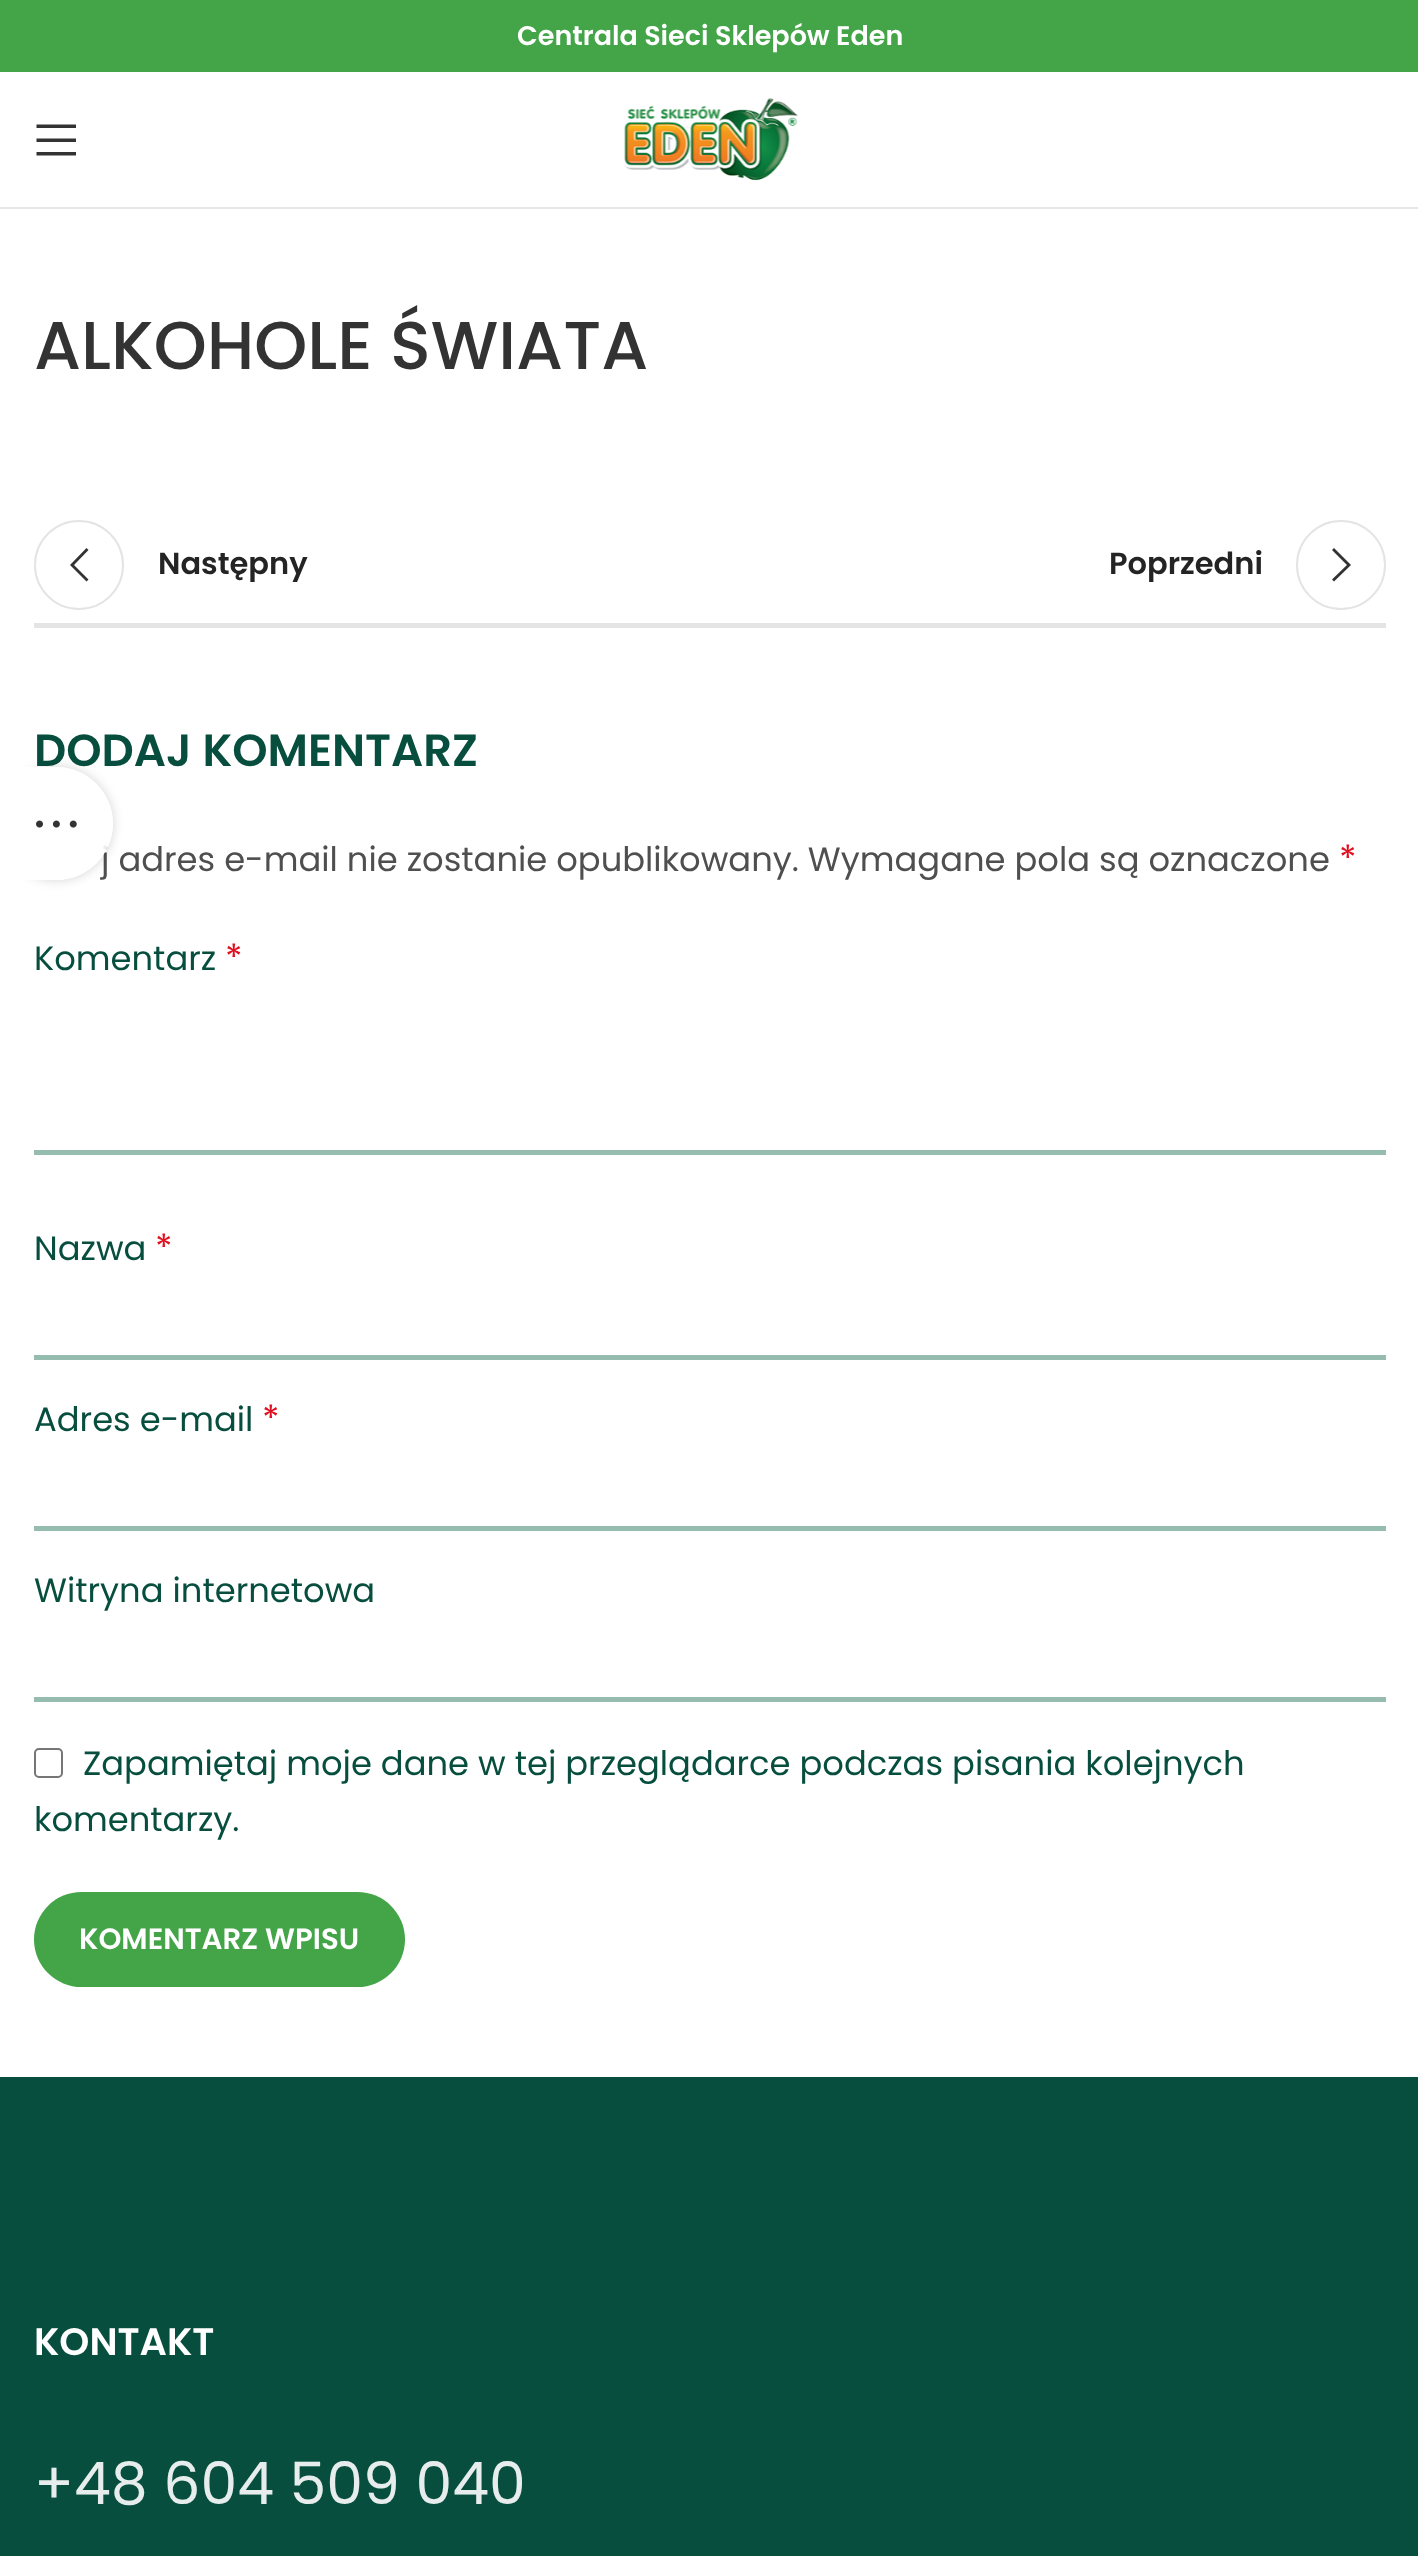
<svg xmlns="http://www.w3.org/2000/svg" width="1418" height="2556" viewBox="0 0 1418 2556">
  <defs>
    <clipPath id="clip1"><path d="M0 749H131V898H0ZM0 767H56.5C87.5 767 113 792.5 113 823.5C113 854.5 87.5 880 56.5 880H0Z" clip-rule="evenodd"/></clipPath>
  </defs>
  <rect width="100%" height="100%" fill="rgb(255,255,255)"/>
  <rect x="0" y="0" width="1418" height="72" fill="rgb(67,165,72)"/>
  <text x="517" y="45" font-family="Poppins" font-size="27" font-weight="600" fill="rgb(255,255,255)">Centrala Sieci Sklepów Eden</text>
  <rect x="0" y="207" width="1418" height="2" fill="rgb(230,230,230)"/>
  <path d="M36.5 128H76V124.5H36.5ZM36.5 142H76V138.5H36.5ZM36.5 155.5H76V152H36.5Z" fill="rgb(51,51,51)"/>
  <image x="624" y="98" width="174" height="83" href="pic1.png"/>
  <text x="34" y="369" font-family="Poppins" font-size="67.5" font-weight="500" fill="rgb(51,51,51)">ALKOHOLE ŚWIATA</text>
  <rect x="34" y="623" width="1352" height="5" fill="rgb(228,228,228)"/>
  <circle cx="79" cy="565" r="44" fill="none" stroke="rgb(228,228,228)" stroke-width="2"/>
  <path d="M88.5 550L86.5 548L70 565L86.5 581.5L88.5 579.5L74 565Z" fill="rgb(51,51,51)"/>
  <g font-family="Poppins" font-size="30.5" font-weight="600" fill="rgb(36,36,36)">
    <text x="158" y="574">Następny</text>
    <text x="1109" y="574">Poprzedni</text>
  </g>
  <circle cx="1341" cy="565" r="44" fill="none" stroke="rgb(228,228,228)" stroke-width="2"/>
  <path d="M1332 550L1347 565L1332 579.5L1334 581.5L1351 565L1334 548Z" fill="rgb(51,51,51)"/>
  <text x="34" y="766" font-family="Poppins" font-size="45" font-weight="600" fill="rgb(7,78,62)">DODAJ KOMENTARZ</text>
  <text x="101" y="871" font-family="Poppins" font-size="33.75" fill="rgb(79,79,79)">j adres e-mail nie zostanie opublikowany. Wymagane pola są oznaczone</text>
  <text x="1339" y="871" font-family="Poppins" font-size="36" fill="rgb(224,16,32)">*</text>
  <text x="34" y="970" font-family="Poppins" font-size="33.75" fill="rgb(7,78,62)">Komentarz</text>
  <text x="225" y="970" font-family="Poppins" font-size="36" fill="rgb(224,16,32)">*</text>
  <rect x="34" y="1150" width="1352" height="5" fill="rgb(149,188,174)"/>
  <text x="34" y="1260" font-family="Poppins" font-size="33.75" fill="rgb(7,78,62)">Nazwa</text>
  <text x="155" y="1260" font-family="Poppins" font-size="36" fill="rgb(224,16,32)">*</text>
  <rect x="34" y="1355" width="1352" height="5" fill="rgb(149,188,174)"/>
  <text x="34" y="1431" font-family="Poppins" font-size="33.75" fill="rgb(7,78,62)">Adres e-mail</text>
  <text x="262" y="1431" font-family="Poppins" font-size="36" fill="rgb(224,16,32)">*</text>
  <rect x="34" y="1526" width="1352" height="5" fill="rgb(149,188,174)"/>
  <text x="34" y="1602" font-family="Poppins" font-size="33.75" fill="rgb(7,78,62)">Witryna internetowa</text>
  <rect x="34" y="1697" width="1352" height="5" fill="rgb(149,188,174)"/>
  <rect x="35" y="1749" width="27" height="28" rx="4" fill="none" stroke="rgb(118,118,118)" stroke-width="2"/>
  <g font-family="Poppins" font-size="33.75" fill="rgb(7,78,62)">
    <text x="83" y="1775">Zapamiętaj moje dane w tej przeglądarce podczas pisania kolejnych</text>
    <text x="34" y="1831">komentarzy.</text>
  </g>
  <rect x="34" y="1892" width="371" height="95" rx="47.5" fill="rgb(67,165,72)"/>
  <text x="79" y="1949" font-family="Poppins" font-size="29.25" font-weight="600" fill="rgb(255,255,255)">KOMENTARZ WPISU</text>
  <rect x="0" y="2077" width="1418" height="479" fill="rgb(7,78,62)"/>
  <text x="34" y="2355" font-family="Poppins" font-size="38.25" font-weight="600" fill="rgb(255,255,255)">KONTAKT</text>
  <text x="34" y="2504" font-family="Poppins" font-size="58.5" fill="rgb(230,237,236)">+48 604 509 040</text>
  <g clip-path="url(#clip1)">
    <rect x="0" y="767" width="113" height="113" rx="56.5" fill="rgba(0,0,0,0.17)" filter="blur(5.5px)"/>
  </g>
  <path d="M0 767H56.5C87.5 767 113 792.5 113 823.5C113 854.5 87.5 880 56.5 880H0Z" fill="rgba(255,255,255,0.9)"/>
  <image x="36" y="820" width="41" height="8" href="pic2.png"/>
</svg>
